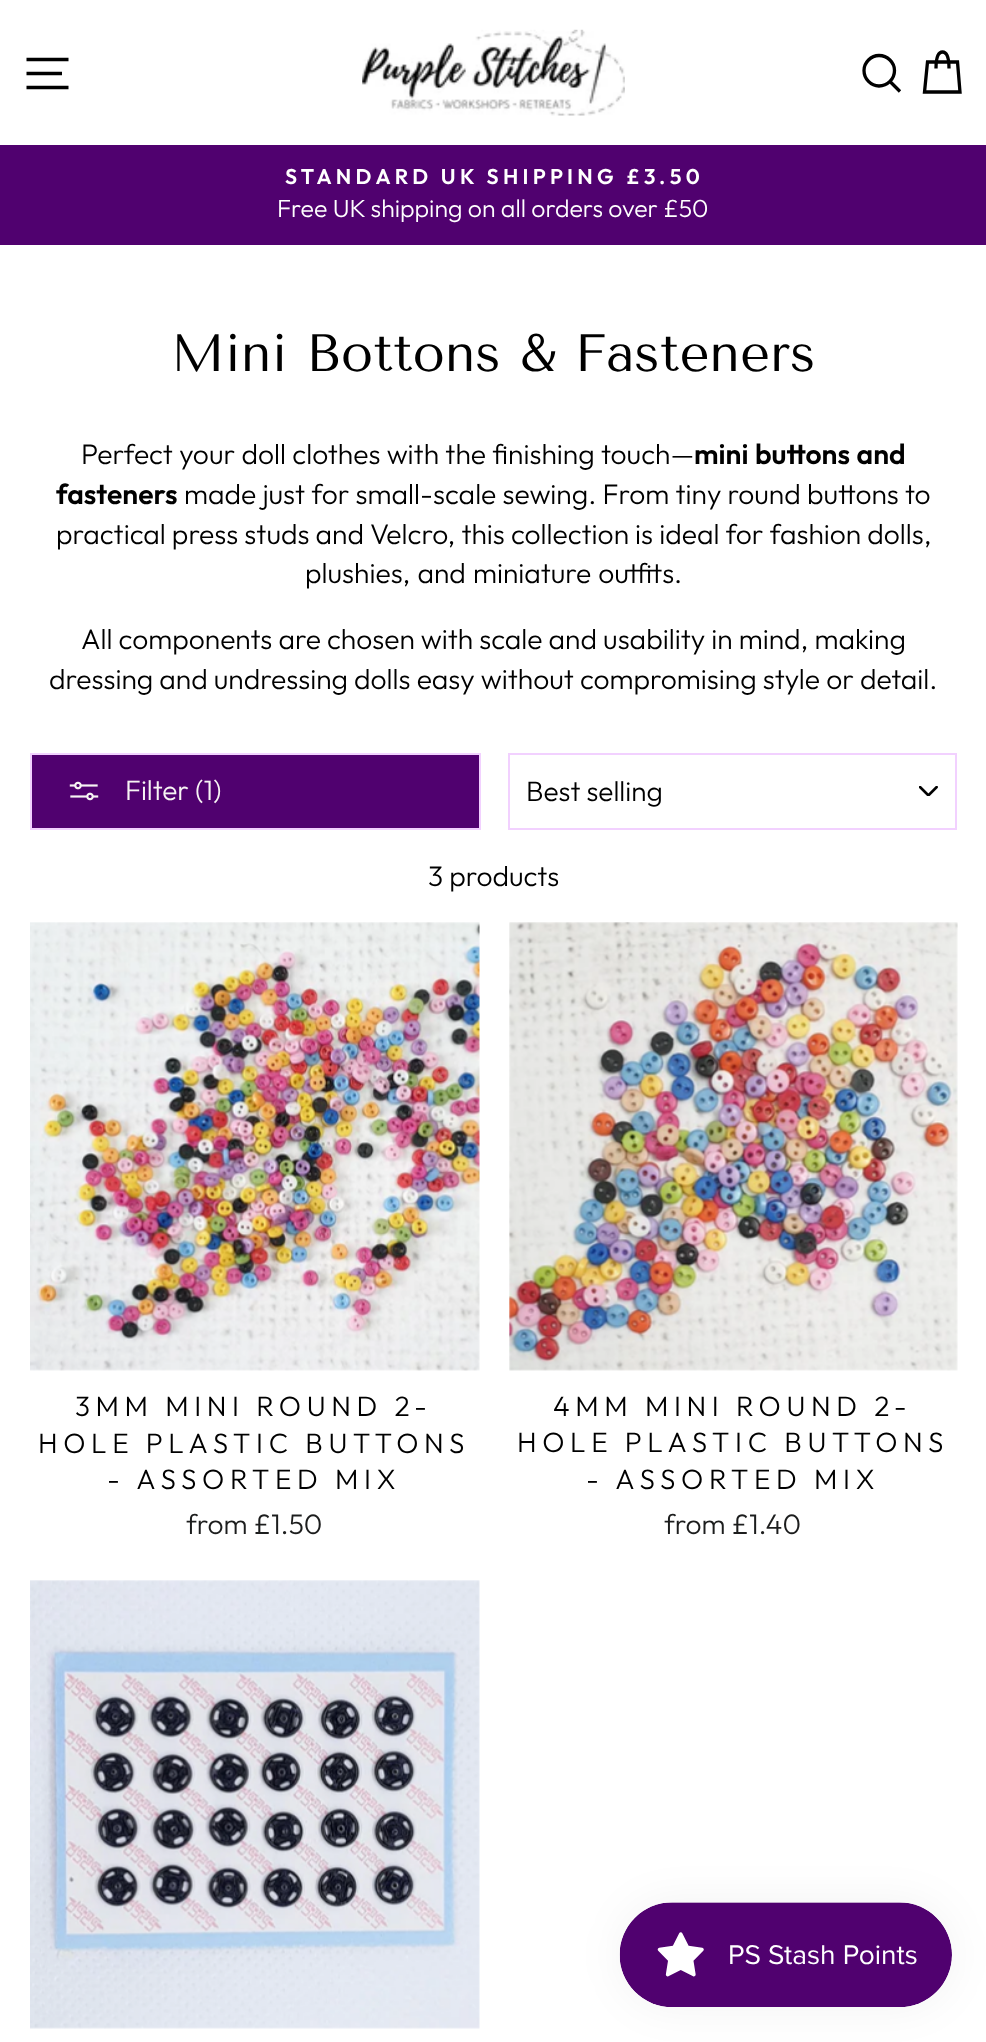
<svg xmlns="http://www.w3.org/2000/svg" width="986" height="2042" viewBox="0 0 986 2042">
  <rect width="100%" height="100%" fill="rgb(255,255,255)"/>
  <path d="M26.5 59.5H68.5M26.5 73.5H62M26.5 87.5H68.5" fill="none" stroke="rgb(0,0,0)" stroke-width="3.3"/>
  <image x="362" y="29" width="263" height="87" href="pic1.png"/>
  <path d="M894.5 70.5C894.5 79 887.5 86 879 86C871 86 864 79 864 70.5C864 62.5 871 55.5 879 55.5C887.5 55.5 894.5 62.5 894.5 70.5ZM900 91.5L890 81.5" fill="none" stroke="rgb(0,0,0)" stroke-width="3.3"/>
  <path d="M936 68.5C936 55.5 938.5 52 942.5 52C946 52 949 55.5 949 68.5M927.5 62H957.5L960 92H924.5Z" fill="none" stroke="rgb(0,0,0)" stroke-width="3.3"/>
  <rect x="0" y="145" width="986" height="100" fill="rgb(80,1,111)"/>
  <text x="285" y="184" font-family="Outfit" font-size="21.25" font-weight="600" letter-spacing="4.25" fill="rgb(255,255,255)">STANDARD UK SHIPPING £3.50</text>
  <text x="277" y="217" font-family="Outfit" font-size="24.9" font-weight="300" fill="rgb(255,255,255)">Free UK shipping on all orders over £50</text>
  <text x="171" y="371" font-family="Tenor Sans" font-size="52.5" fill="rgb(0,0,0)">Mini Bottons &amp; Fasteners</text>
  <text x="81" y="464" word-spacing="0.25" font-family="Outfit" font-size="28.25" font-weight="300" fill="rgb(0,0,0)">Perfect your doll clothes with the finishing touch—</text>
  <g font-family="Outfit" font-size="28.25" font-weight="600" fill="rgb(0,0,0)">
    <text x="694" y="464" word-spacing="1">mini buttons and</text>
    <text x="56" y="504">fasteners</text>
  </g>
  <g font-family="Outfit" font-size="28.25" font-weight="300" fill="rgb(0,0,0)">
    <text x="184" y="504" word-spacing="0.1">made just for small-scale sewing. From tiny round buttons to</text>
    <text x="56" y="544">practical press studs and Velcro, this collection is ideal for fashion dolls,</text>
    <text x="305" y="583" word-spacing="1">plushies, and miniature outfits.</text>
    <text x="81" y="649">All components are chosen with scale and usability in mind, making</text>
    <text x="49" y="689">dressing and undressing dolls easy without compromising style or detail.</text>
  </g>
  <rect x="31" y="754" width="449" height="75" fill="rgb(80,1,111)" stroke="rgb(242,209,255)" stroke-width="2"/>
  <image x="69" y="781" width="30" height="20" href="pic2.png"/>
  <text x="125" y="800" font-family="Outfit" font-size="28" font-weight="300" fill="rgb(247,244,244)">Filter (1)</text>
  <image x="919" y="786" width="19" height="10" href="pic3.png"/>
  <rect x="509" y="754" width="447" height="75" fill="none" stroke="rgb(242,209,255)" stroke-width="2"/>
  <text x="526" y="801" font-family="Outfit" font-size="28" font-weight="300" fill="rgb(0,0,0)">Best selling</text>
  <text x="428" y="886" font-family="Outfit" font-size="28.25" font-weight="300" fill="rgb(0,0,0)">3 products</text>
  <image x="30" y="922" width="450" height="449" href="pic4.png"/>
  <g font-family="Outfit" font-size="28" font-weight="300" letter-spacing="5.6" fill="rgb(0,0,0)">
    <text x="75" y="1416">3MM MINI ROUND 2-</text>
    <text x="38" y="1453">HOLE PLASTIC BUTTONS</text>
    <text x="107" y="1489">- ASSORTED MIX</text>
  </g>
  <text x="186" y="1534" font-family="Outfit" font-size="28.25" font-weight="300" fill="rgb(28,29,29)">from £1.50</text>
  <image x="509" y="922" width="449" height="449" href="pic5.png"/>
  <g font-family="Outfit" font-size="28" font-weight="300" letter-spacing="5.6" fill="rgb(0,0,0)">
    <text x="553" y="1416">4MM MINI ROUND 2-</text>
    <text x="517" y="1452">HOLE PLASTIC BUTTONS</text>
    <text x="586" y="1489">- ASSORTED MIX</text>
  </g>
  <text x="664" y="1534" font-family="Outfit" font-size="28.25" font-weight="300" fill="rgb(28,29,29)">from £1.40</text>
  <image x="30" y="1580" width="450" height="449" href="pic6.png"/>
  <rect x="620" y="1902" width="332" height="105" rx="52.5" fill="rgba(0,0,0,0.05)" filter="blur(22px)"/>
  <image x="619" y="1902" width="333" height="105" href="pic7.png"/>
</svg>
